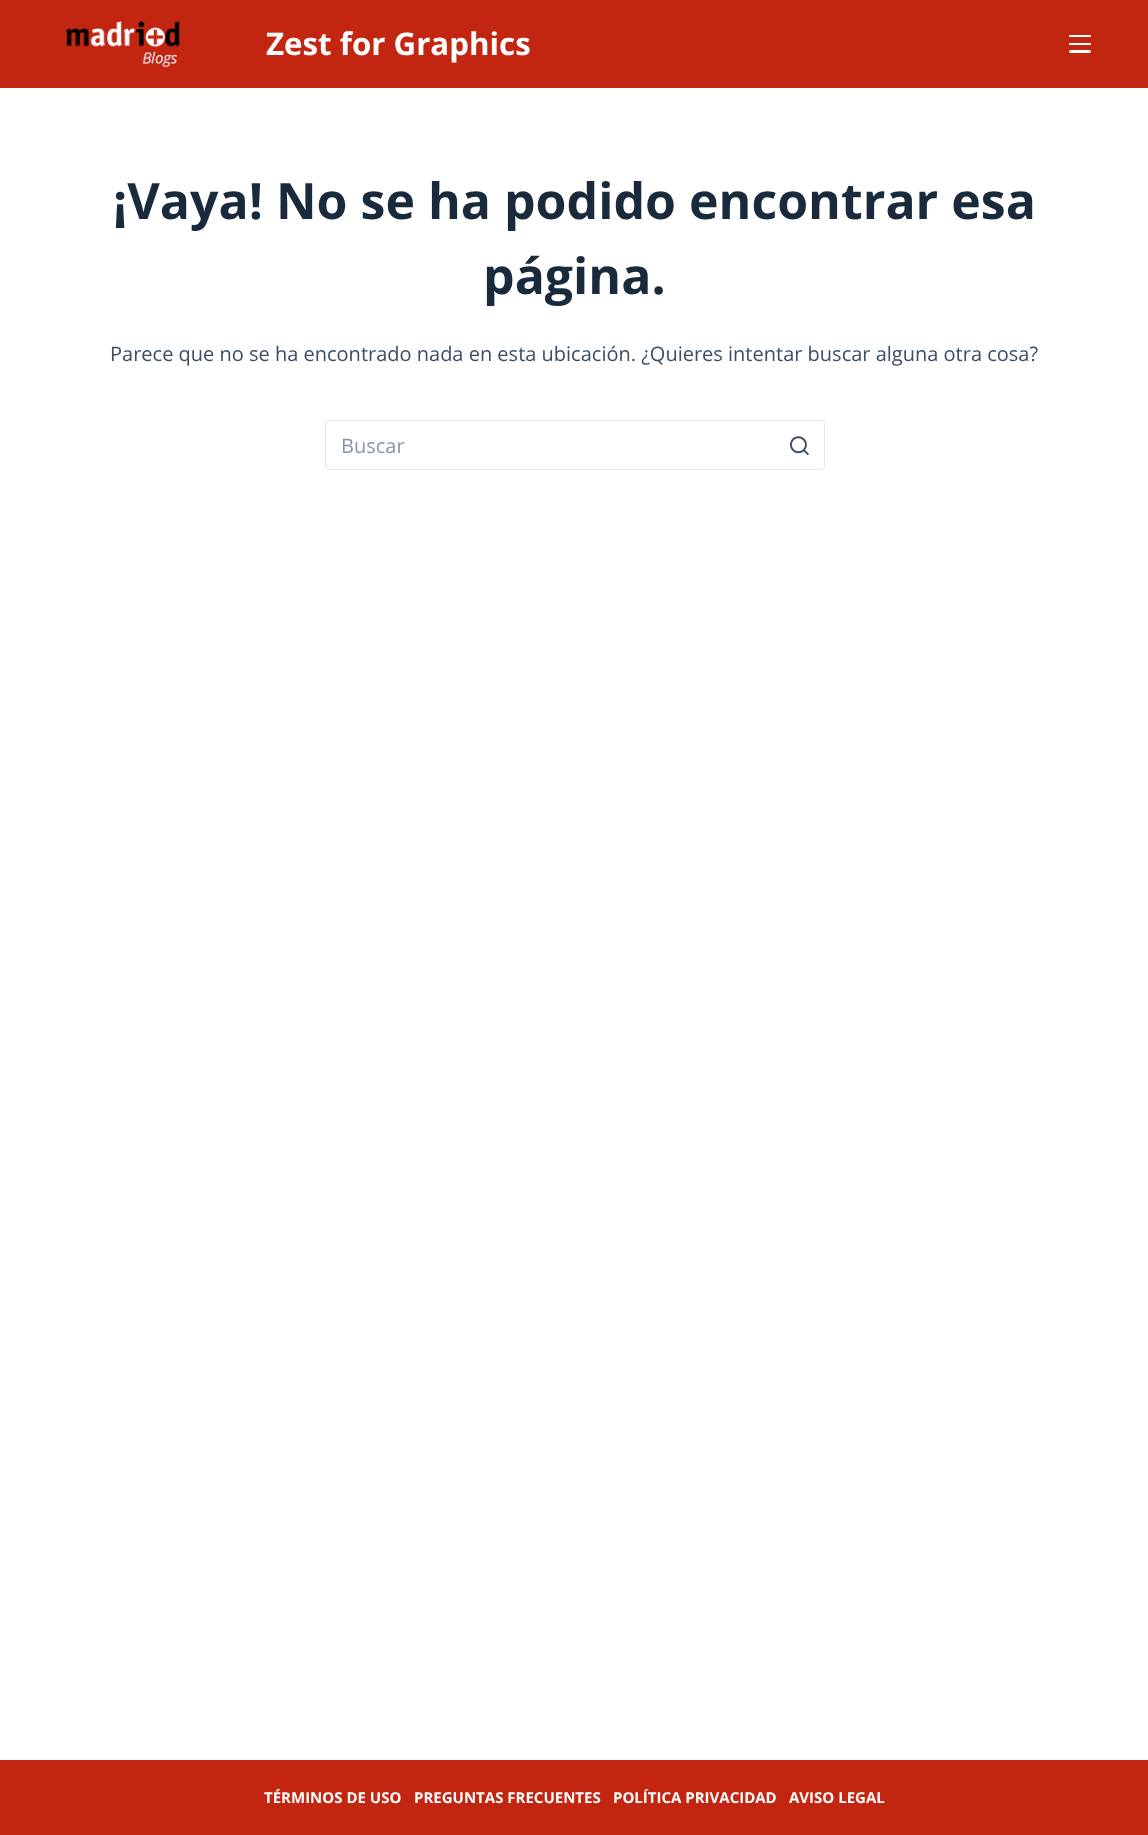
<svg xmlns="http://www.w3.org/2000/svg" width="1148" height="1835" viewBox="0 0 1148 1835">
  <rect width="100%" height="100%" fill="rgb(255,255,255)"/>
  <rect x="0" y="0" width="1148" height="88" fill="rgb(194,38,17)"/>
  <image x="66" y="21" width="115" height="47" href="pic1.png"/>
  <text x="266" y="55" font-family="Open Sans" font-size="31.25" font-weight="bold" fill="rgb(255,255,255)">Zest for Graphics</text>
  <rect x="1069" y="35" width="22" height="2" rx="1" fill="rgb(255,255,255)"/>
  <rect x="1069" y="43" width="22" height="2" rx="1" fill="rgb(255,255,255)"/>
  <rect x="1069" y="50" width="22" height="3" rx="1.5" fill="rgb(255,255,255)"/>
  <g font-family="Open Sans" font-size="50" font-weight="bold" fill="rgb(25,42,61)">
    <text x="113" y="219">¡Vaya! No se ha podido encontrar esa</text>
    <text x="483" y="294">página.</text>
  </g>
  <text x="110" y="361" font-family="Open Sans" font-size="20" fill="rgb(58,79,102)">Parece que no se ha encontrado nada en esta ubicación. ¿Quieres intentar buscar alguna otra cosa?</text>
  <rect x="325.5" y="420.5" width="499" height="49" rx="3.5" fill="none" stroke="rgb(225,232,237)"/>
  <text x="341" y="453" font-family="Open Sans" font-size="20" fill="rgb(137,149,163)">Buscar</text>
  <image x="790" y="436" width="19" height="19" href="pic2.png"/>
  <rect x="0" y="1760" width="1148" height="75" fill="rgb(194,38,17)"/>
  <g font-family="Open Sans" font-size="15" font-weight="bold" fill="rgb(255,255,255)">
    <text x="264" y="1803">TÉRMINOS DE USO</text>
    <text x="414" y="1803">PREGUNTAS FRECUENTES</text>
    <text x="613" y="1803">POLÍTICA PRIVACIDAD</text>
    <text x="789" y="1803">AVISO LEGAL</text>
  </g>
</svg>
